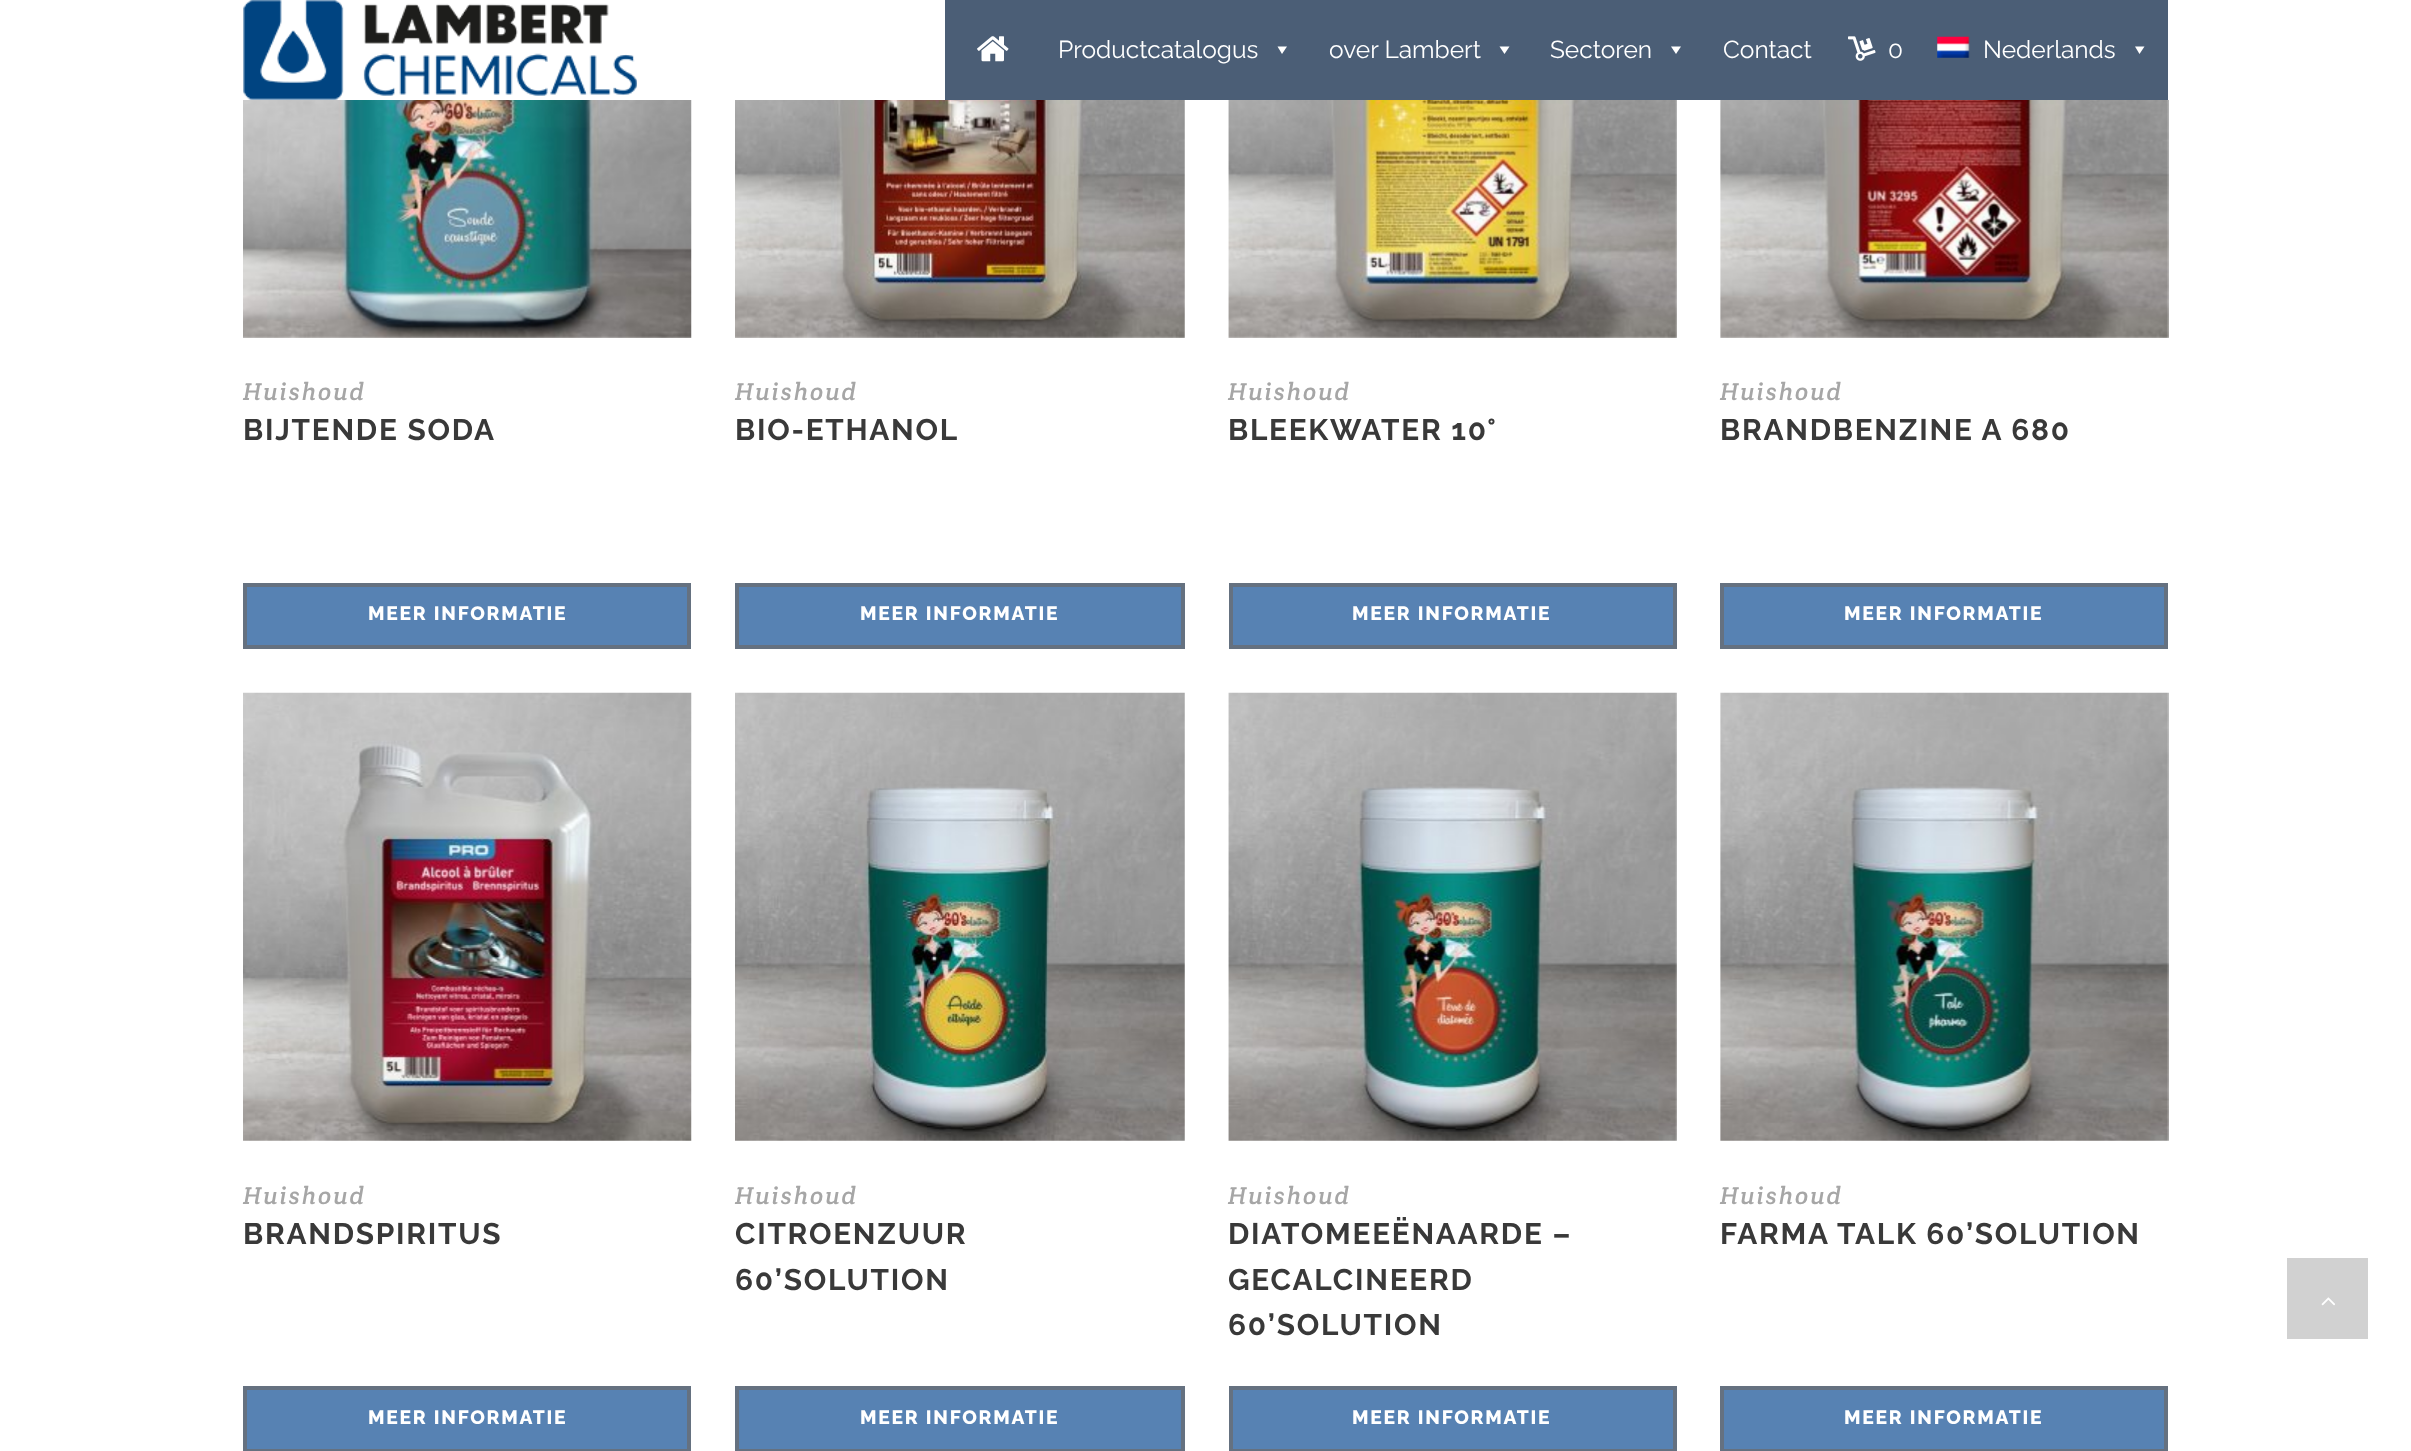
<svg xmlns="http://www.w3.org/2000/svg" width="2411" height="1451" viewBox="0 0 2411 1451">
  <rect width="100%" height="100%" fill="rgb(255,255,255)"/>
  <image x="243" y="0" width="394" height="100" href="pic1.png"/>
  <rect x="945" y="0" width="1223" height="100" fill="rgb(75,94,118)"/>
  <image x="977" y="36" width="32" height="26" href="pic2.png"/>
  <text x="1058" y="58" font-family="Raleway" font-size="24.5" fill="rgb(255,255,255)">Productcatalogus</text>
  <path d="M1287 46.5L1282 54L1277.5 46.5Z" fill="rgb(255,255,255)"/>
  <text x="1329" y="58" font-family="Raleway" font-size="24.5" fill="rgb(255,255,255)">over Lambert</text>
  <path d="M1509.5 46.5L1504.5 54L1499.5 46.5Z" fill="rgb(255,255,255)"/>
  <text x="1550" y="58" font-family="Raleway" font-size="24.5" fill="rgb(255,255,255)">Sectoren</text>
  <path d="M1681 46.5L1676 54L1671 46.5Z" fill="rgb(255,255,255)"/>
  <text x="1723" y="58" font-family="Raleway" font-size="24.5" fill="rgb(255,255,255)">Contact</text>
  <image x="1848" y="36" width="28" height="25" href="pic3.png"/>
  <text x="1888" y="58" font-family="Raleway" font-size="24.5" fill="rgb(255,255,255)">0</text>
  <image x="1937" y="36" width="33" height="22" href="pic4.png"/>
  <text x="1983" y="58" font-family="Raleway" font-size="24.5" fill="rgb(255,255,255)">Nederlands</text>
  <path d="M2144.5 46.5L2139.5 54L2135 46.5Z" fill="rgb(255,255,255)"/>
  <image x="243" y="100" width="449" height="238" href="pic5.png"/>
  <text x="243" y="400" font-family="Crete Round" font-size="24.5" font-style="italic" letter-spacing="1.75" fill="rgb(166,166,166)">Huishoud</text>
  <text x="243" y="440" font-family="Raleway" font-size="29.75" font-weight="bold" letter-spacing="1.75" fill="rgb(57,57,57)">BIJTENDE SODA</text>
  <rect x="245" y="585" width="444" height="62" fill="rgb(87,130,179)" stroke="rgb(101,113,128)" stroke-width="4"/>
  <text x="368" y="620" font-family="Raleway" font-size="19.25" font-weight="800" letter-spacing="1.75" fill="rgb(255,255,255)">MEER INFORMATIE</text>
  <image x="735" y="100" width="450" height="238" href="pic6.png"/>
  <text x="735" y="400" font-family="Crete Round" font-size="24.5" font-style="italic" letter-spacing="1.75" fill="rgb(166,166,166)">Huishoud</text>
  <text x="735" y="440" font-family="Raleway" font-size="29.75" font-weight="bold" letter-spacing="1.75" fill="rgb(57,57,57)">BIO-ETHANOL</text>
  <rect x="737" y="585" width="446" height="62" fill="rgb(87,130,179)" stroke="rgb(101,113,128)" stroke-width="4"/>
  <text x="860" y="620" font-family="Raleway" font-size="19.25" font-weight="800" letter-spacing="1.75" fill="rgb(255,255,255)">MEER INFORMATIE</text>
  <image x="1228" y="100" width="449" height="238" href="pic7.png"/>
  <text x="1228" y="400" font-family="Crete Round" font-size="24.5" font-style="italic" letter-spacing="1.75" fill="rgb(166,166,166)">Huishoud</text>
  <text x="1228" y="440" font-family="Raleway" font-size="29.75" font-weight="bold" letter-spacing="1.75" fill="rgb(57,57,57)">BLEEKWATER 10°</text>
  <rect x="1231" y="585" width="444" height="62" fill="rgb(87,130,179)" stroke="rgb(101,113,128)" stroke-width="4"/>
  <text x="1352" y="620" font-family="Raleway" font-size="19.25" font-weight="800" letter-spacing="1.75" fill="rgb(255,255,255)">MEER INFORMATIE</text>
  <image x="1720" y="100" width="449" height="238" href="pic8.png"/>
  <text x="1720" y="400" font-family="Crete Round" font-size="24.5" font-style="italic" letter-spacing="1.75" fill="rgb(166,166,166)">Huishoud</text>
  <text x="1720" y="440" font-family="Raleway" font-size="29.75" font-weight="bold" letter-spacing="1.75" fill="rgb(57,57,57)">BRANDBENZINE A 680</text>
  <rect x="1722" y="585" width="444" height="62" fill="rgb(87,130,179)" stroke="rgb(101,113,128)" stroke-width="4"/>
  <text x="1844" y="620" font-family="Raleway" font-size="19.25" font-weight="800" letter-spacing="1.75" fill="rgb(255,255,255)">MEER INFORMATIE</text>
  <image x="243" y="692" width="449" height="449" href="pic9.png"/>
  <text x="243" y="1204" font-family="Crete Round" font-size="24.5" font-style="italic" letter-spacing="1.75" fill="rgb(166,166,166)">Huishoud</text>
  <text x="243" y="1244" font-family="Raleway" font-size="29.75" font-weight="bold" letter-spacing="1.75" fill="rgb(57,57,57)">BRANDSPIRITUS</text>
  <rect x="245" y="1388" width="444" height="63" fill="rgb(87,130,179)" stroke="rgb(101,113,128)" stroke-width="4"/>
  <text x="368" y="1424" font-family="Raleway" font-size="19.25" font-weight="800" letter-spacing="1.75" fill="rgb(255,255,255)">MEER INFORMATIE</text>
  <image x="735" y="692" width="450" height="449" href="pic10.png"/>
  <text x="735" y="1204" font-family="Crete Round" font-size="24.5" font-style="italic" letter-spacing="1.75" fill="rgb(166,166,166)">Huishoud</text>
  <g font-family="Raleway" font-size="29.75" font-weight="bold" letter-spacing="1.75" fill="rgb(57,57,57)">
    <text>
      <tspan x="735" y="1244">CITROENZUUR</tspan>
      <tspan x="735" y="1290">60’SOLUTION</tspan>
    </text>
  </g>
  <rect x="737" y="1388" width="446" height="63" fill="rgb(87,130,179)" stroke="rgb(101,113,128)" stroke-width="4"/>
  <text x="860" y="1424" font-family="Raleway" font-size="19.25" font-weight="800" letter-spacing="1.75" fill="rgb(255,255,255)">MEER INFORMATIE</text>
  <image x="1228" y="692" width="449" height="449" href="pic11.png"/>
  <text x="1228" y="1204" font-family="Crete Round" font-size="24.5" font-style="italic" letter-spacing="1.75" fill="rgb(166,166,166)">Huishoud</text>
  <g font-family="Raleway" font-size="29.75" font-weight="bold" letter-spacing="1.75" fill="rgb(57,57,57)">
    <text>
      <tspan x="1228" y="1244">DIATOMEEËNAARDE –</tspan>
      <tspan x="1228" y="1290">GECALCINEERD</tspan>
      <tspan x="1228" y="1335">60’SOLUTION</tspan>
    </text>
  </g>
  <rect x="1231" y="1388" width="444" height="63" fill="rgb(87,130,179)" stroke="rgb(101,113,128)" stroke-width="4"/>
  <text x="1352" y="1424" font-family="Raleway" font-size="19.25" font-weight="800" letter-spacing="1.75" fill="rgb(255,255,255)">MEER INFORMATIE</text>
  <image x="1720" y="692" width="449" height="449" href="pic12.png"/>
  <text x="1720" y="1204" font-family="Crete Round" font-size="24.5" font-style="italic" letter-spacing="1.75" fill="rgb(166,166,166)">Huishoud</text>
  <text x="1720" y="1244" font-family="Raleway" font-size="29.75" font-weight="bold" letter-spacing="1.75" fill="rgb(57,57,57)">FARMA TALK 60’SOLUTION</text>
  <rect x="1722" y="1388" width="444" height="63" fill="rgb(87,130,179)" stroke="rgb(101,113,128)" stroke-width="4"/>
  <text x="1844" y="1424" font-family="Raleway" font-size="19.25" font-weight="800" letter-spacing="1.75" fill="rgb(255,255,255)">MEER INFORMATIE</text>
  <rect x="2287" y="1258" width="81" height="81" fill="rgb(209,209,209)"/>
  <image x="2321" y="1297" width="14" height="9" href="pic13.png"/>
</svg>
